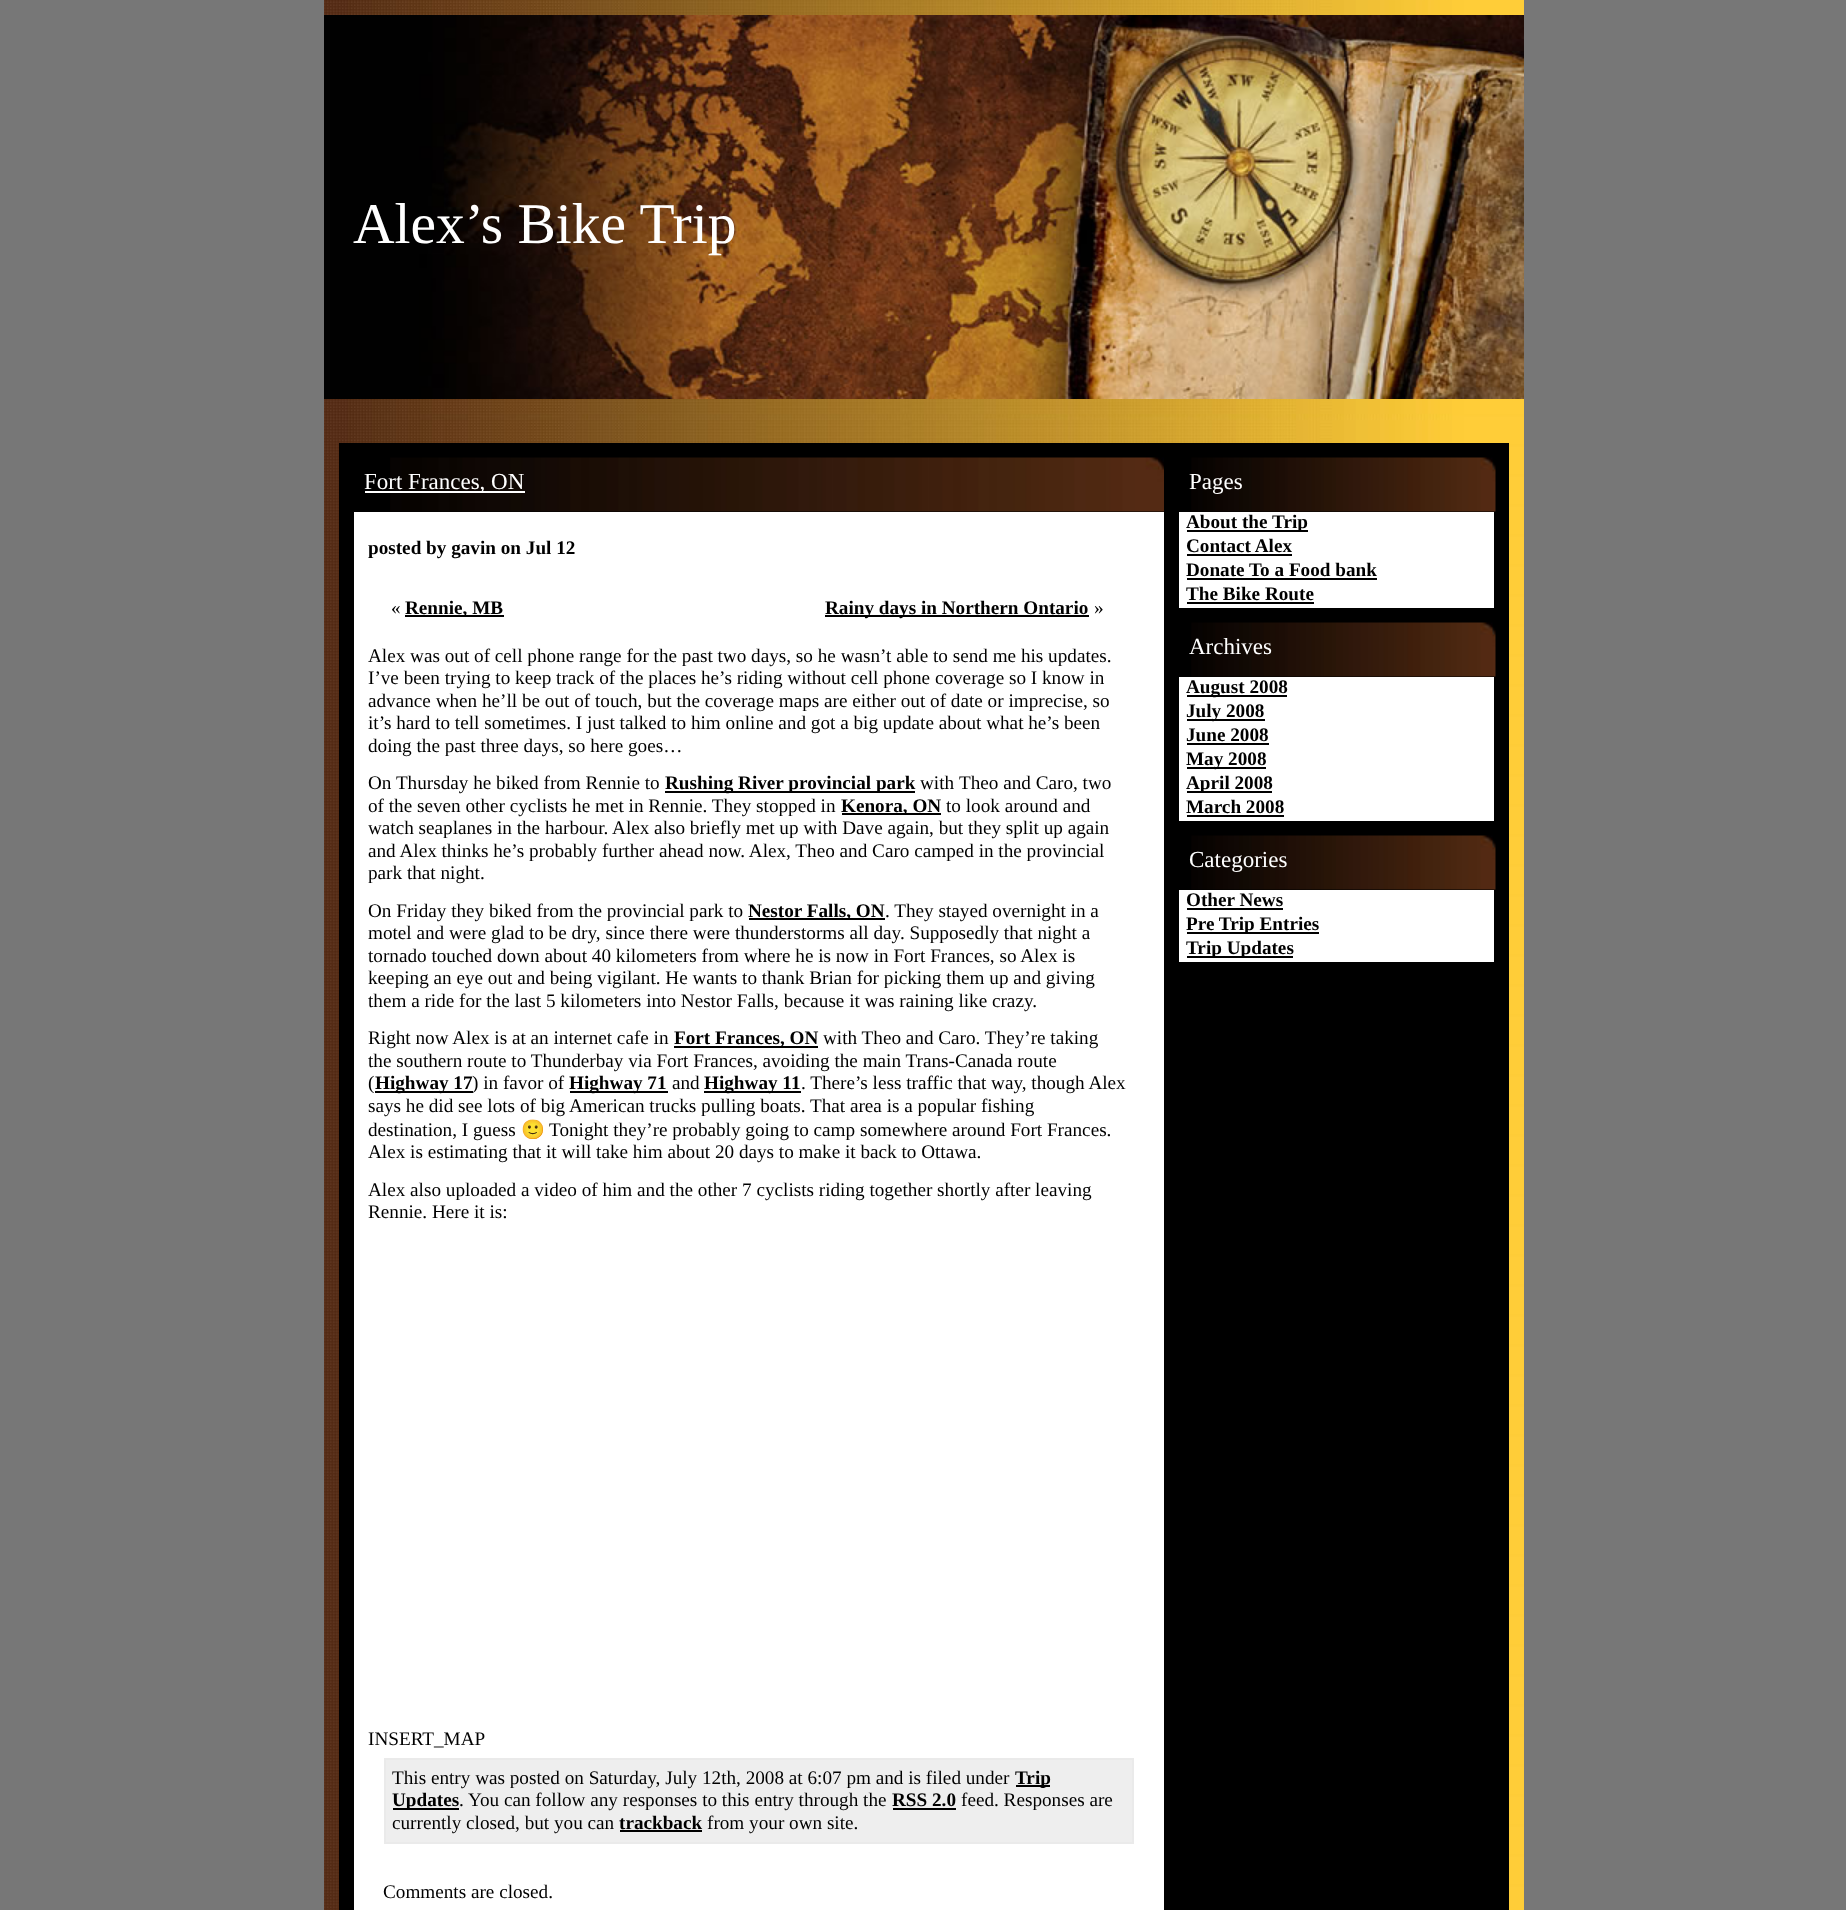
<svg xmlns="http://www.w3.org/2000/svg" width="1846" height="1910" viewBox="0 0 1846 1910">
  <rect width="100%" height="100%" fill="rgb(119,119,119)"/>
  <image x="324" y="0" width="1200" height="1910" href="pic1.png"/>
  <image x="324" y="15" width="1200" height="384" href="pic2.png"/>
  <text x="353" y="243" font-family="Liberation Serif" font-size="57.5" fill="rgb(255,255,255)">Alex’s Bike Trip</text>
  <rect x="339" y="443" width="1170" height="1467" fill="rgb(0,0,0)"/>
  <image x="390" y="457" width="774" height="55" href="pic3.png"/>
  <rect x="365" y="491" width="160" height="2" fill="rgb(255,255,255)"/>
  <text x="364" y="489" font-family="Liberation Serif" font-size="23" fill="rgb(255,255,255)">Fort Frances, ON</text>
  <rect x="354" y="512" width="810" height="1398" fill="rgb(255,255,255)"/>
  <text x="368" y="554" font-family="Liberation Serif" font-size="19.2" font-weight="bold" fill="rgb(0,0,0)">posted by gavin on Jul 12</text>
  <text x="391" y="614" font-family="Liberation Serif" font-size="19.2" fill="rgb(0,0,0)">«</text>
  <rect x="405" y="615" width="99" height="2" fill="rgb(0,0,0)"/>
  <text x="405" y="614" font-family="Liberation Serif" font-size="19.2" font-weight="bold" fill="rgb(0,0,0)">Rennie, MB</text>
  <rect x="825" y="615" width="264" height="2" fill="rgb(0,0,0)"/>
  <text x="825" y="614" font-family="Liberation Serif" font-size="19.2" font-weight="bold" fill="rgb(0,0,0)">Rainy days in Northern Ontario</text>
  <g font-family="Liberation Serif" font-size="19.2" fill="rgb(0,0,0)">
    <text x="1094" y="614">»</text>
    <text>
      <tspan x="368" y="662">Alex was out of cell phone range for the past two days, so he wasn’t able to send me his updates.</tspan>
      <tspan x="368" y="684">I’ve been trying to keep track of the places he’s riding without cell phone coverage so I know in</tspan>
      <tspan x="368" y="707">advance when he’ll be out of touch, but the coverage maps are either out of date or imprecise, so</tspan>
      <tspan x="368" y="729">it’s hard to tell sometimes. I just talked to him online and got a big update about what he’s been</tspan>
      <tspan x="368" y="752">doing the past three days, so here goes…</tspan>
      <tspan x="368" y="789">On Thursday he biked from Rennie to</tspan>
    </text>
  </g>
  <rect x="665" y="791" width="250" height="2" fill="rgb(0,0,0)"/>
  <text x="665" y="789" font-family="Liberation Serif" font-size="19.2" font-weight="bold" fill="rgb(0,0,0)">Rushing River provincial park</text>
  <g font-family="Liberation Serif" font-size="19.2" fill="rgb(0,0,0)">
    <text x="920" y="789">with</text>
    <text x="959" y="789">Theo and Caro, two</text>
    <text x="368" y="812">of the seven other cyclists he met in Rennie. They stopped in</text>
  </g>
  <rect x="842" y="813" width="99" height="2" fill="rgb(0,0,0)"/>
  <text x="841" y="812" font-family="Liberation Serif" font-size="19.2" font-weight="bold" fill="rgb(0,0,0)">Kenora, ON</text>
  <g font-family="Liberation Serif" font-size="19.2" fill="rgb(0,0,0)">
    <text x="946" y="812">to look around and</text>
    <text>
      <tspan x="368" y="834">watch seaplanes in the harbour. Alex also briefly met up with Dave again, but they split up again</tspan>
      <tspan x="368" y="857">and Alex thinks he’s probably further ahead now. Alex, Theo and Caro camped in the provincial</tspan>
      <tspan x="368" y="879">park that night.</tspan>
      <tspan x="368" y="917">On Friday they biked from the provincial park to</tspan>
    </text>
  </g>
  <rect x="749" y="918" width="136" height="2" fill="rgb(0,0,0)"/>
  <text x="748" y="917" font-family="Liberation Serif" font-size="19.2" font-weight="bold" fill="rgb(0,0,0)">Nestor Falls, ON</text>
  <g font-family="Liberation Serif" font-size="19.2" fill="rgb(0,0,0)">
    <text x="885" y="917">. They stayed overnight in a</text>
    <text>
      <tspan x="368" y="939">motel and were glad to be dry, since there were thunderstorms all day. Supposedly that night a</tspan>
      <tspan x="368" y="962">tornado touched down about 40 kilometers from where he is now in Fort Frances, so Alex is</tspan>
      <tspan x="368" y="984">keeping an eye out and being vigilant. He wants to thank Brian for picking them up and giving</tspan>
      <tspan x="368" y="1007">them a ride for the last 5 kilometers into Nestor Falls, because it was raining like crazy.</tspan>
      <tspan x="368" y="1044">Right now Alex is at an internet cafe in</tspan>
    </text>
  </g>
  <rect x="674" y="1046" width="144" height="2" fill="rgb(0,0,0)"/>
  <text x="674" y="1044" font-family="Liberation Serif" font-size="19.2" font-weight="bold" fill="rgb(0,0,0)">Fort Frances, ON</text>
  <g font-family="Liberation Serif" font-size="19.2" fill="rgb(0,0,0)">
    <text x="823" y="1044">with Theo and Caro. They’re taking</text>
    <text>
      <tspan x="368" y="1067">the southern route to Thunderbay via Fort Frances, avoiding the main Trans-Canada route</tspan>
      <tspan x="368" y="1089">(</tspan>
    </text>
  </g>
  <rect x="375" y="1091" width="98" height="2" fill="rgb(0,0,0)"/>
  <text x="375" y="1089" font-family="Liberation Serif" font-size="19.2" font-weight="bold" fill="rgb(0,0,0)">Highway 17</text>
  <text x="472" y="1089" font-family="Liberation Serif" font-size="19.2" fill="rgb(0,0,0)">) in favor of</text>
  <rect x="570" y="1091" width="98" height="2" fill="rgb(0,0,0)"/>
  <text x="569" y="1089" font-family="Liberation Serif" font-size="19.2" font-weight="bold" fill="rgb(0,0,0)">Highway 71</text>
  <text x="672" y="1089" font-family="Liberation Serif" font-size="19.2" fill="rgb(0,0,0)">and</text>
  <rect x="704" y="1091" width="97" height="2" fill="rgb(0,0,0)"/>
  <text x="704" y="1089" font-family="Liberation Serif" font-size="19.2" font-weight="bold" fill="rgb(0,0,0)">Highway 11</text>
  <g font-family="Liberation Serif" font-size="19.2" fill="rgb(0,0,0)">
    <text x="801" y="1089">. There’s less traffic that way, though Alex</text>
    <text>
      <tspan x="368" y="1112">says he did see lots of big American trucks pulling boats. That area is a popular fishing</tspan>
      <tspan x="368" y="1136">destination, I guess</tspan>
    </text>
  </g>
  <text x="521" y="1136" font-family="Noto Color Emoji" font-size="19.2" fill="rgb(0,0,0)">🙂</text>
  <g font-family="Liberation Serif" font-size="19.2" fill="rgb(0,0,0)">
    <text x="549" y="1136">Tonight they’re probably going to camp somewhere around Fort Frances.</text>
    <text>
      <tspan x="368" y="1158">Alex is estimating that it will take him about 20 days to make it back to Ottawa.</tspan>
      <tspan x="368" y="1196">Alex also uploaded a video of him and the other 7 cyclists riding together shortly after leaving</tspan>
      <tspan x="368" y="1218">Rennie. Here it is:</tspan>
    </text>
    <text x="368" y="1745">INSERT_MAP</text>
  </g>
  <rect x="385" y="1759" width="748" height="84" fill="rgb(238,238,238)" stroke="rgb(234,234,234)" stroke-width="2"/>
  <text x="392" y="1784" font-family="Liberation Serif" font-size="19.2" fill="rgb(0,0,0)">This entry was posted on Saturday, July 12th, 2008 at 6:07 pm and is filed under</text>
  <rect x="1016" y="1785" width="34" height="2" fill="rgb(0,0,0)"/>
  <text x="1015" y="1784" font-family="Liberation Serif" font-size="19.2" font-weight="bold" fill="rgb(0,0,0)">Trip</text>
  <rect x="393" y="1808" width="66" height="2" fill="rgb(0,0,0)"/>
  <text x="392" y="1806" font-family="Liberation Serif" font-size="19.2" font-weight="bold" fill="rgb(0,0,0)">Updates</text>
  <g font-family="Liberation Serif" font-size="19.2" fill="rgb(0,0,0)">
    <text x="459" y="1806">.</text>
    <text x="468" y="1806">You can follow any responses to this entry through the</text>
  </g>
  <text x="892" y="1806" font-family="Liberation Serif" font-size="19.2" font-weight="bold" fill="rgb(0,0,0)">RSS 2.0</text>
  <rect x="893" y="1808" width="63" height="2" fill="rgb(0,0,0)"/>
  <g font-family="Liberation Serif" font-size="19.2" fill="rgb(0,0,0)">
    <text x="961" y="1806">feed. Responses are</text>
    <text x="392" y="1829">currently closed, but you can</text>
  </g>
  <text x="619" y="1829" font-family="Liberation Serif" font-size="19.2" font-weight="bold" fill="rgb(0,0,0)">trackback</text>
  <rect x="620" y="1830" width="82" height="2" fill="rgb(0,0,0)"/>
  <g font-family="Liberation Serif" font-size="19.2" fill="rgb(0,0,0)">
    <text x="707" y="1829">from your own site.</text>
    <text x="383" y="1898">Comments are closed.</text>
  </g>
  <image x="1191" y="457" width="305" height="55" href="pic4.png"/>
  <text x="1189" y="489" font-family="Liberation Serif" font-size="23" fill="rgb(255,255,255)">Pages</text>
  <rect x="1179" y="512" width="315" height="96" fill="rgb(255,255,255)"/>
  <rect x="1187" y="530" width="121" height="2" fill="rgb(0,0,0)"/>
  <g font-family="Liberation Serif" font-size="19.2" font-weight="bold" fill="rgb(0,0,0)">
    <text>
      <tspan x="1186" y="528">About the Trip</tspan>
      <tspan x="1186" y="552">Contact Alex</tspan>
    </text>
  </g>
  <rect x="1187" y="554" width="105" height="2" fill="rgb(0,0,0)"/>
  <text x="1186" y="576" font-family="Liberation Serif" font-size="19.2" font-weight="bold" fill="rgb(0,0,0)">Donate To a Food bank</text>
  <rect x="1187" y="578" width="190" height="2" fill="rgb(0,0,0)"/>
  <text x="1186" y="600" font-family="Liberation Serif" font-size="19.2" font-weight="bold" fill="rgb(0,0,0)">The Bike Route</text>
  <rect x="1187" y="602" width="127" height="2" fill="rgb(0,0,0)"/>
  <image x="1191" y="622" width="305" height="55" href="pic4.png"/>
  <text x="1189" y="654" font-family="Liberation Serif" font-size="23" fill="rgb(255,255,255)">Archives</text>
  <rect x="1179" y="677" width="315" height="144" fill="rgb(255,255,255)"/>
  <rect x="1187" y="695" width="100" height="2" fill="rgb(0,0,0)"/>
  <text x="1186" y="693" font-family="Liberation Serif" font-size="19.2" font-weight="bold" fill="rgb(0,0,0)">August 2008</text>
  <rect x="1187" y="719" width="78" height="2" fill="rgb(0,0,0)"/>
  <g font-family="Liberation Serif" font-size="19.2" font-weight="bold" fill="rgb(0,0,0)">
    <text>
      <tspan x="1186" y="717">July 2008</tspan>
      <tspan x="1186" y="741">June 2008</tspan>
    </text>
  </g>
  <rect x="1187" y="743" width="82" height="2" fill="rgb(0,0,0)"/>
  <rect x="1187" y="767" width="79" height="2" fill="rgb(0,0,0)"/>
  <text x="1186" y="765" font-family="Liberation Serif" font-size="19.2" font-weight="bold" fill="rgb(0,0,0)">May 2008</text>
  <rect x="1187" y="791" width="85" height="2" fill="rgb(0,0,0)"/>
  <g font-family="Liberation Serif" font-size="19.2" font-weight="bold" fill="rgb(0,0,0)">
    <text>
      <tspan x="1186" y="789">April 2008</tspan>
      <tspan x="1186" y="813">March 2008</tspan>
    </text>
  </g>
  <rect x="1187" y="815" width="97" height="2" fill="rgb(0,0,0)"/>
  <image x="1191" y="835" width="305" height="55" href="pic4.png"/>
  <text x="1189" y="867" font-family="Liberation Serif" font-size="23" fill="rgb(255,255,255)">Categories</text>
  <rect x="1179" y="890" width="315" height="72" fill="rgb(255,255,255)"/>
  <text x="1186" y="906" font-family="Liberation Serif" font-size="19.2" font-weight="bold" fill="rgb(0,0,0)">Other News</text>
  <rect x="1187" y="908" width="96" height="2" fill="rgb(0,0,0)"/>
  <rect x="1187" y="932" width="132" height="2" fill="rgb(0,0,0)"/>
  <text x="1186" y="930" font-family="Liberation Serif" font-size="19.2" font-weight="bold" fill="rgb(0,0,0)">Pre Trip Entries</text>
  <rect x="1187" y="956" width="106" height="2" fill="rgb(0,0,0)"/>
  <text x="1186" y="954" font-family="Liberation Serif" font-size="19.2" font-weight="bold" fill="rgb(0,0,0)">Trip Updates</text>
</svg>
